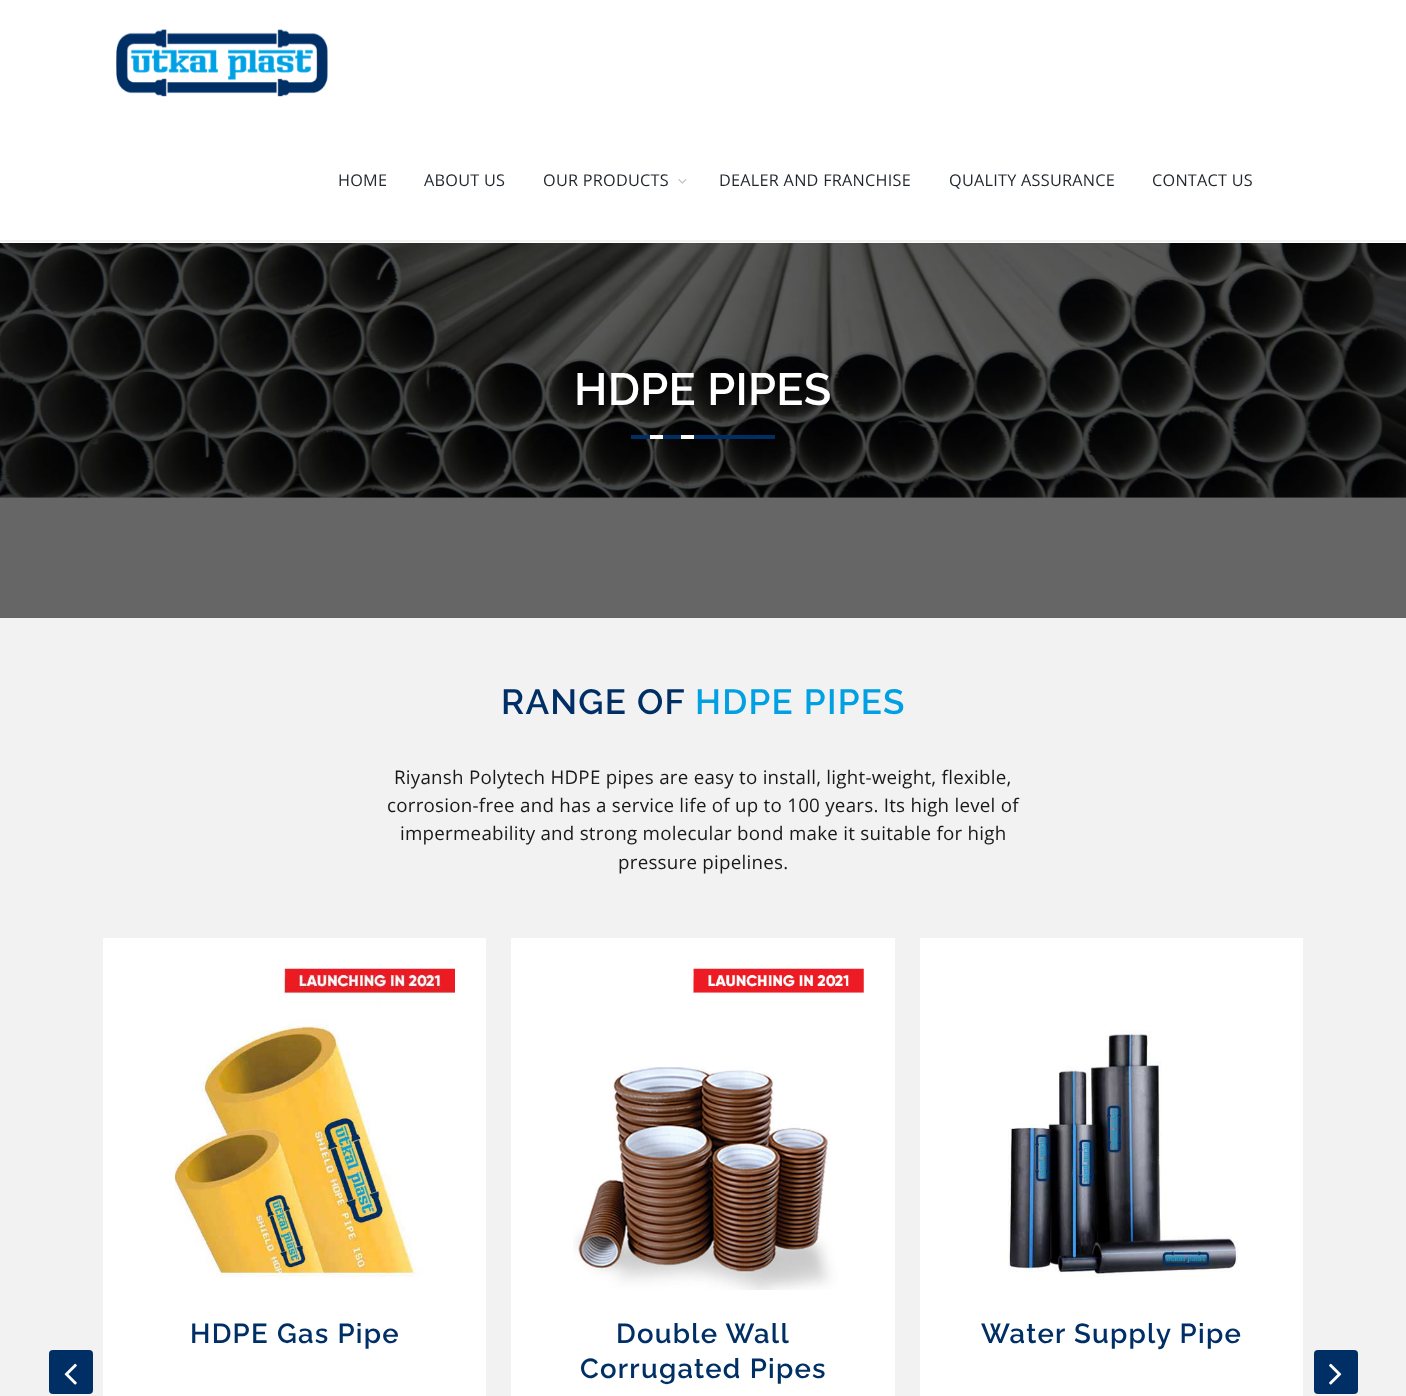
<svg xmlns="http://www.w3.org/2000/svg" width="1406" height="1396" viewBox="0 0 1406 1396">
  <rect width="100%" height="100%" fill="rgb(102,102,102)"/>
  <image x="0" y="243" width="1406" height="255" href="pic3.png"/>
  <rect x="0" y="0" width="1406" height="243" fill="rgba(0,0,0,0.1)" filter="blur(1px)"/>
  <rect x="0" y="0" width="1406" height="243" fill="rgb(255,255,255)"/>
  <rect x="0" y="240" width="1406" height="2" fill="rgb(242,242,242)"/>
  <image x="116" y="29" width="212" height="68" href="pic1.png"/>
  <g font-family="Open Sans" font-size="16.25" letter-spacing="0.25" fill="rgb(31,38,45)">
    <text x="338" y="186">HOME</text>
    <text x="424" y="186">ABOUT US</text>
    <text x="543" y="186">OUR PRODUCTS</text>
  </g>
  <image x="678" y="179" width="9" height="5" href="pic2.png"/>
  <g font-family="Open Sans" font-size="16.25" letter-spacing="0.25" fill="rgb(31,38,45)">
    <text x="719" y="186">DEALER AND FRANCHISE</text>
    <text x="949" y="186">QUALITY ASSURANCE</text>
    <text x="1152" y="186">CONTACT US</text>
  </g>
  <text x="574" y="405" font-family="Raleway" font-size="45" font-weight="600" letter-spacing="0.25" fill="rgb(255,255,255)">HDPE PIPES</text>
  <rect x="631" y="435" width="144" height="4" fill="rgb(0,47,102)"/>
  <rect x="681" y="435" width="13" height="4" fill="rgb(255,255,255)"/>
  <rect x="650" y="435" width="13" height="4" fill="rgb(255,255,255)"/>
  <rect x="0" y="618" width="1406" height="778" fill="rgb(242,242,242)"/>
  <text x="501" y="714" font-family="Raleway" font-size="35" font-weight="600" letter-spacing="1.25" fill="rgb(0,47,102)">RANGE OF</text>
  <text x="695" y="714" font-family="Raleway" font-size="35" font-weight="600" letter-spacing="1.25" fill="rgb(0,160,227)">HDPE PIPES</text>
  <g font-family="Open Sans" font-size="18.75" letter-spacing="0.25" fill="rgb(25,25,26)">
    <text x="394" y="784">Riyansh Polytech HDPE pipes are easy to install, light-weight, flexible,</text>
    <text x="387" y="812">corrosion-free and has a service life of up to 100 years. Its high level of</text>
    <text x="400" y="840">impermeability and strong molecular bond make it suitable for high</text>
    <text x="618" y="869">pressure pipelines.</text>
  </g>
  <rect x="103" y="938" width="383" height="458" fill="rgb(255,255,255)"/>
  <image x="174" y="968" width="281" height="310" href="pic4.png"/>
  <text x="190" y="1343" font-family="Raleway" font-size="27.5" font-weight="600" letter-spacing="1.25" fill="rgb(0,47,102)">HDPE Gas Pipe</text>
  <rect x="511" y="938" width="384" height="458" fill="rgb(255,255,255)"/>
  <image x="573" y="968" width="291" height="322" href="pic5.png"/>
  <g font-family="Raleway" font-size="27.5" font-weight="600" letter-spacing="1.25" fill="rgb(0,47,102)">
    <text x="616" y="1343">Double Wall</text>
    <text x="580" y="1378">Corrugated Pipes</text>
  </g>
  <rect x="920" y="938" width="383" height="458" fill="rgb(255,255,255)"/>
  <image x="1003" y="1030" width="235" height="247" href="pic6.png"/>
  <text x="981" y="1343" font-family="Raleway" font-size="27.5" font-weight="600" letter-spacing="1.25" fill="rgb(0,47,102)">Water Supply Pipe</text>
  <rect x="49" y="1350" width="44" height="44" rx="4" fill="rgb(0,47,102)"/>
  <image x="64" y="1363" width="13" height="22" href="pic7.png"/>
  <rect x="1314" y="1350" width="44" height="44" rx="4" fill="rgb(0,47,102)"/>
  <image x="1329" y="1363" width="13" height="22" href="pic8.png"/>
</svg>
